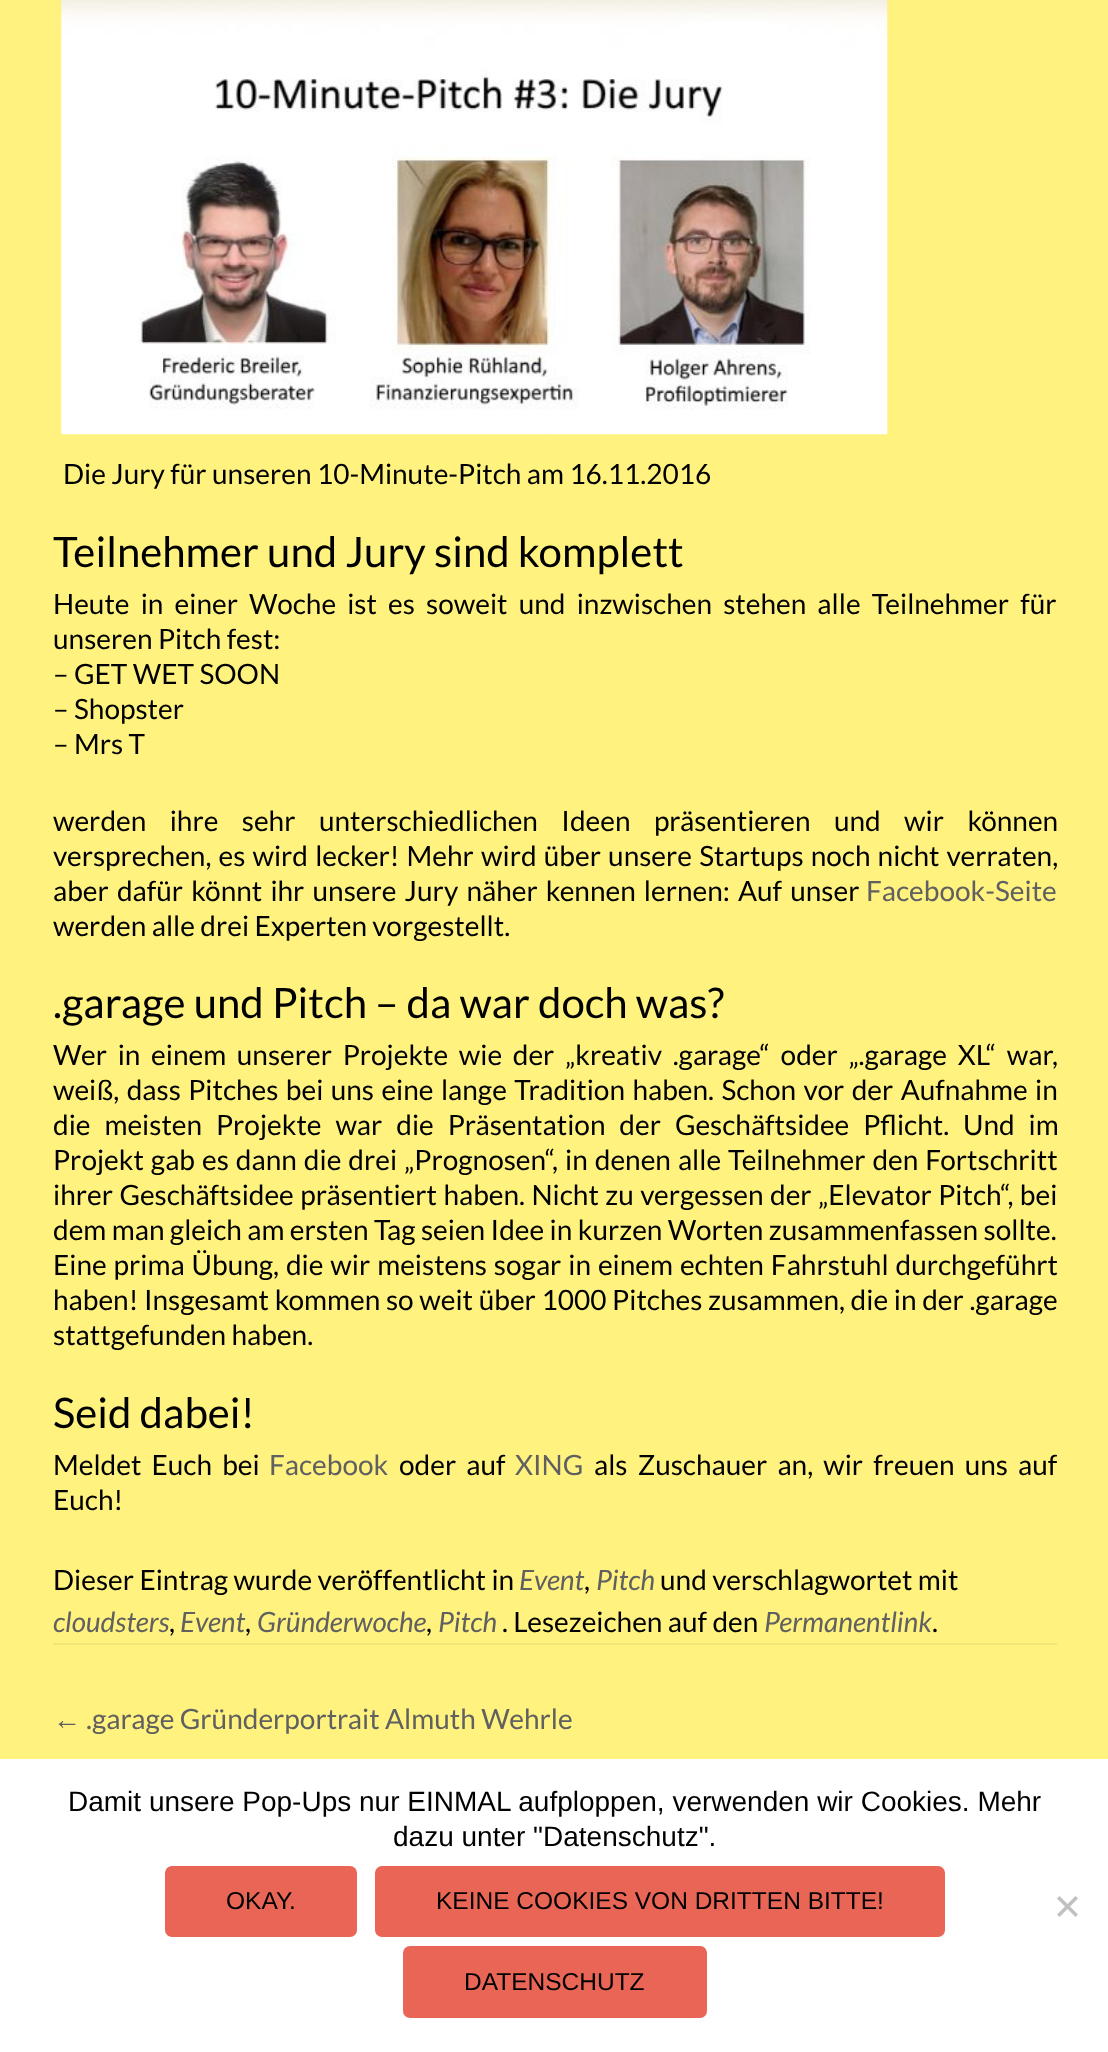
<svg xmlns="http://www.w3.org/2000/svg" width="1108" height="2052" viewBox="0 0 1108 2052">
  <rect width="100%" height="100%" fill="rgb(255,242,127)"/>
  <rect x="53" y="1643" width="1004" height="2" fill="rgb(242,230,121)"/>
  <image x="61" y="0" width="827" height="435" href="pic1.png"/>
  <text x="63" y="484" font-family="Lato" font-size="28" fill="rgb(0,0,0)">Die Jury für unseren 10-Minute-Pitch am 16.11.2016</text>
  <text x="53" y="567" font-family="Lato" font-size="42" fill="rgb(0,0,0)">Teilnehmer und Jury sind komplett</text>
  <g font-family="Lato" font-size="28" fill="rgb(0,0,0)">
    <text>
      <tspan x="53" y="614" word-spacing="5.75">Heute in einer Woche ist es soweit und inzwischen stehen alle Teilnehmer für</tspan>
      <tspan x="53" y="649">unseren Pitch fest:</tspan>
      <tspan x="53" y="684">– GET WET SOON</tspan>
      <tspan x="53" y="719">– Shopster</tspan>
      <tspan x="53" y="754">– Mrs T</tspan>
    </text>
    <text>
      <tspan x="53" y="831" word-spacing="18">werden ihre sehr unterschiedlichen Ideen präsentieren und wir können</tspan>
      <tspan x="53" y="866" word-spacing="1.75">versprechen, es wird lecker! Mehr wird über unsere Startups noch nicht verraten,</tspan>
      <tspan x="53" y="901" word-spacing="2.75">aber dafür könnt ihr unsere Jury näher kennen lernen: Auf unser</tspan>
    </text>
  </g>
  <text x="866" y="901" font-family="Lato" font-size="28" fill="rgb(96,96,96)">Facebook-Seite</text>
  <text x="53" y="936" font-family="Lato" font-size="28" fill="rgb(0,0,0)">werden alle drei Experten vorgestellt.</text>
  <text x="53" y="1018" font-family="Lato" font-size="42" fill="rgb(0,0,0)">.garage und Pitch – da war doch was?</text>
  <g font-family="Lato" font-size="28" fill="rgb(0,0,0)">
    <text>
      <tspan x="53" y="1065" word-spacing="5.25">Wer in einem unserer Projekte wie der „kreativ .garage“ oder „.garage XL“ war,</tspan>
      <tspan x="53" y="1100" word-spacing="2">weiß, dass Pitches bei uns eine lange Tradition haben. Schon vor der Aufnahme in</tspan>
      <tspan x="53" y="1135" word-spacing="8.5">die meisten Projekte war die Präsentation der Geschäftsidee Pflicht. Und im</tspan>
      <tspan x="53" y="1170" word-spacing="1.6">Projekt gab es dann die drei „Prognosen“, in denen alle Teilnehmer den Fortschritt</tspan>
      <tspan x="53" y="1205" word-spacing="1">ihrer Geschäftsidee präsentiert haben. Nicht zu vergessen der „Elevator Pitch“, bei</tspan>
      <tspan x="53" y="1240">dem man gleich am ersten Tag seien Idee in kurzen Worten zusammenfassen sollte.</tspan>
      <tspan x="53" y="1275" word-spacing="1.5">Eine prima Übung, die wir meistens sogar in einem echten Fahrstuhl durchgeführt</tspan>
      <tspan x="53" y="1310" word-spacing="0.25">haben! Insgesamt kommen so weit über 1000 Pitches zusammen, die in der .garage</tspan>
      <tspan x="53" y="1345">stattgefunden haben.</tspan>
    </text>
  </g>
  <text x="53" y="1428" font-family="Lato" font-size="42" fill="rgb(0,0,0)">Seid dabei!</text>
  <text x="53" y="1475" word-spacing="4.75" font-family="Lato" font-size="28" fill="rgb(0,0,0)">Meldet Euch bei</text>
  <text x="269" y="1475" font-family="Lato" font-size="28" fill="rgb(96,96,96)">Facebook</text>
  <text x="399" y="1475" word-spacing="4.75" font-family="Lato" font-size="28" fill="rgb(0,0,0)">oder auf</text>
  <text x="515" y="1475" font-family="Lato" font-size="28" fill="rgb(96,96,96)">XING</text>
  <g font-family="Lato" font-size="28" fill="rgb(0,0,0)">
    <text x="594" y="1475" word-spacing="4.75">als Zuschauer an, wir freuen uns auf</text>
    <text x="53" y="1510">Euch!</text>
    <text x="53" y="1590">Dieser Eintrag wurde veröffentlicht in</text>
  </g>
  <text x="519" y="1590" font-family="Lato" font-size="28" font-style="italic" fill="rgb(96,96,96)">Event</text>
  <text x="584" y="1590" font-family="Lato" font-size="28" fill="rgb(0,0,0)">,</text>
  <text x="596" y="1590" font-family="Lato" font-size="28" font-style="italic" fill="rgb(96,96,96)">Pitch</text>
  <text x="660" y="1590" font-family="Lato" font-size="28" fill="rgb(0,0,0)">und verschlagwortet mit</text>
  <text x="53" y="1632" font-family="Lato" font-size="28" font-style="italic" fill="rgb(96,96,96)">cloudsters</text>
  <text x="169" y="1632" font-family="Lato" font-size="28" fill="rgb(0,0,0)">,</text>
  <text x="180" y="1632" font-family="Lato" font-size="28" font-style="italic" fill="rgb(96,96,96)">Event</text>
  <text x="245" y="1632" font-family="Lato" font-size="28" fill="rgb(0,0,0)">,</text>
  <text x="257" y="1632" font-family="Lato" font-size="28" font-style="italic" fill="rgb(96,96,96)">Gründerwoche</text>
  <text x="426" y="1632" font-family="Lato" font-size="28" fill="rgb(0,0,0)">,</text>
  <text x="438" y="1632" font-family="Lato" font-size="28" font-style="italic" fill="rgb(96,96,96)">Pitch</text>
  <text x="502" y="1632" font-family="Lato" font-size="28" fill="rgb(0,0,0)">. Lesezeichen auf den</text>
  <text x="764" y="1632" font-family="Lato" font-size="28" font-style="italic" fill="rgb(96,96,96)">Permanentlink</text>
  <text x="932" y="1632" font-family="Lato" font-size="28" fill="rgb(0,0,0)">.</text>
  <text x="53" y="1729" font-family="Liberation Sans" font-size="28" fill="rgb(96,96,96)">←</text>
  <text x="86" y="1729" font-family="Lato" font-size="28" fill="rgb(96,96,96)">.garage Gründerportrait Almuth Wehrle</text>
  <rect x="0" y="1759" width="1108" height="293" fill="rgb(255,255,255)"/>
  <g font-family="Liberation Sans" font-size="28" fill="rgb(0,0,0)">
    <text x="68" y="1811">Damit unsere Pop-Ups nur EINMAL aufploppen, verwenden wir Cookies. Mehr</text>
    <text x="393" y="1846">dazu unter "Datenschutz".</text>
  </g>
  <rect x="165" y="1866" width="192" height="71" rx="7" fill="rgb(233,102,86)"/>
  <text x="226" y="1909" font-family="Liberation Sans" font-size="24.5" fill="rgb(0,0,0)">OKAY.</text>
  <rect x="375" y="1866" width="570" height="71" rx="7" fill="rgb(233,102,86)"/>
  <text x="436" y="1909" font-family="Liberation Sans" font-size="24.5" fill="rgb(0,0,0)">KEINE COOKIES VON DRITTEN BITTE!</text>
  <rect x="403" y="1946" width="304" height="72" rx="7" fill="rgb(233,102,86)"/>
  <text x="464" y="1990" font-family="Liberation Sans" font-size="24.5" fill="rgb(0,0,0)">DATENSCHUTZ</text>
  <path d="M1075.5 1896L1078 1898.5L1059.5 1917L1057 1914.5Z" fill="rgb(192,192,192)"/>
  <path d="M1057 1898.5L1059.5 1896L1078 1914.5L1075.5 1917Z" fill="rgb(192,192,192)"/>
</svg>
